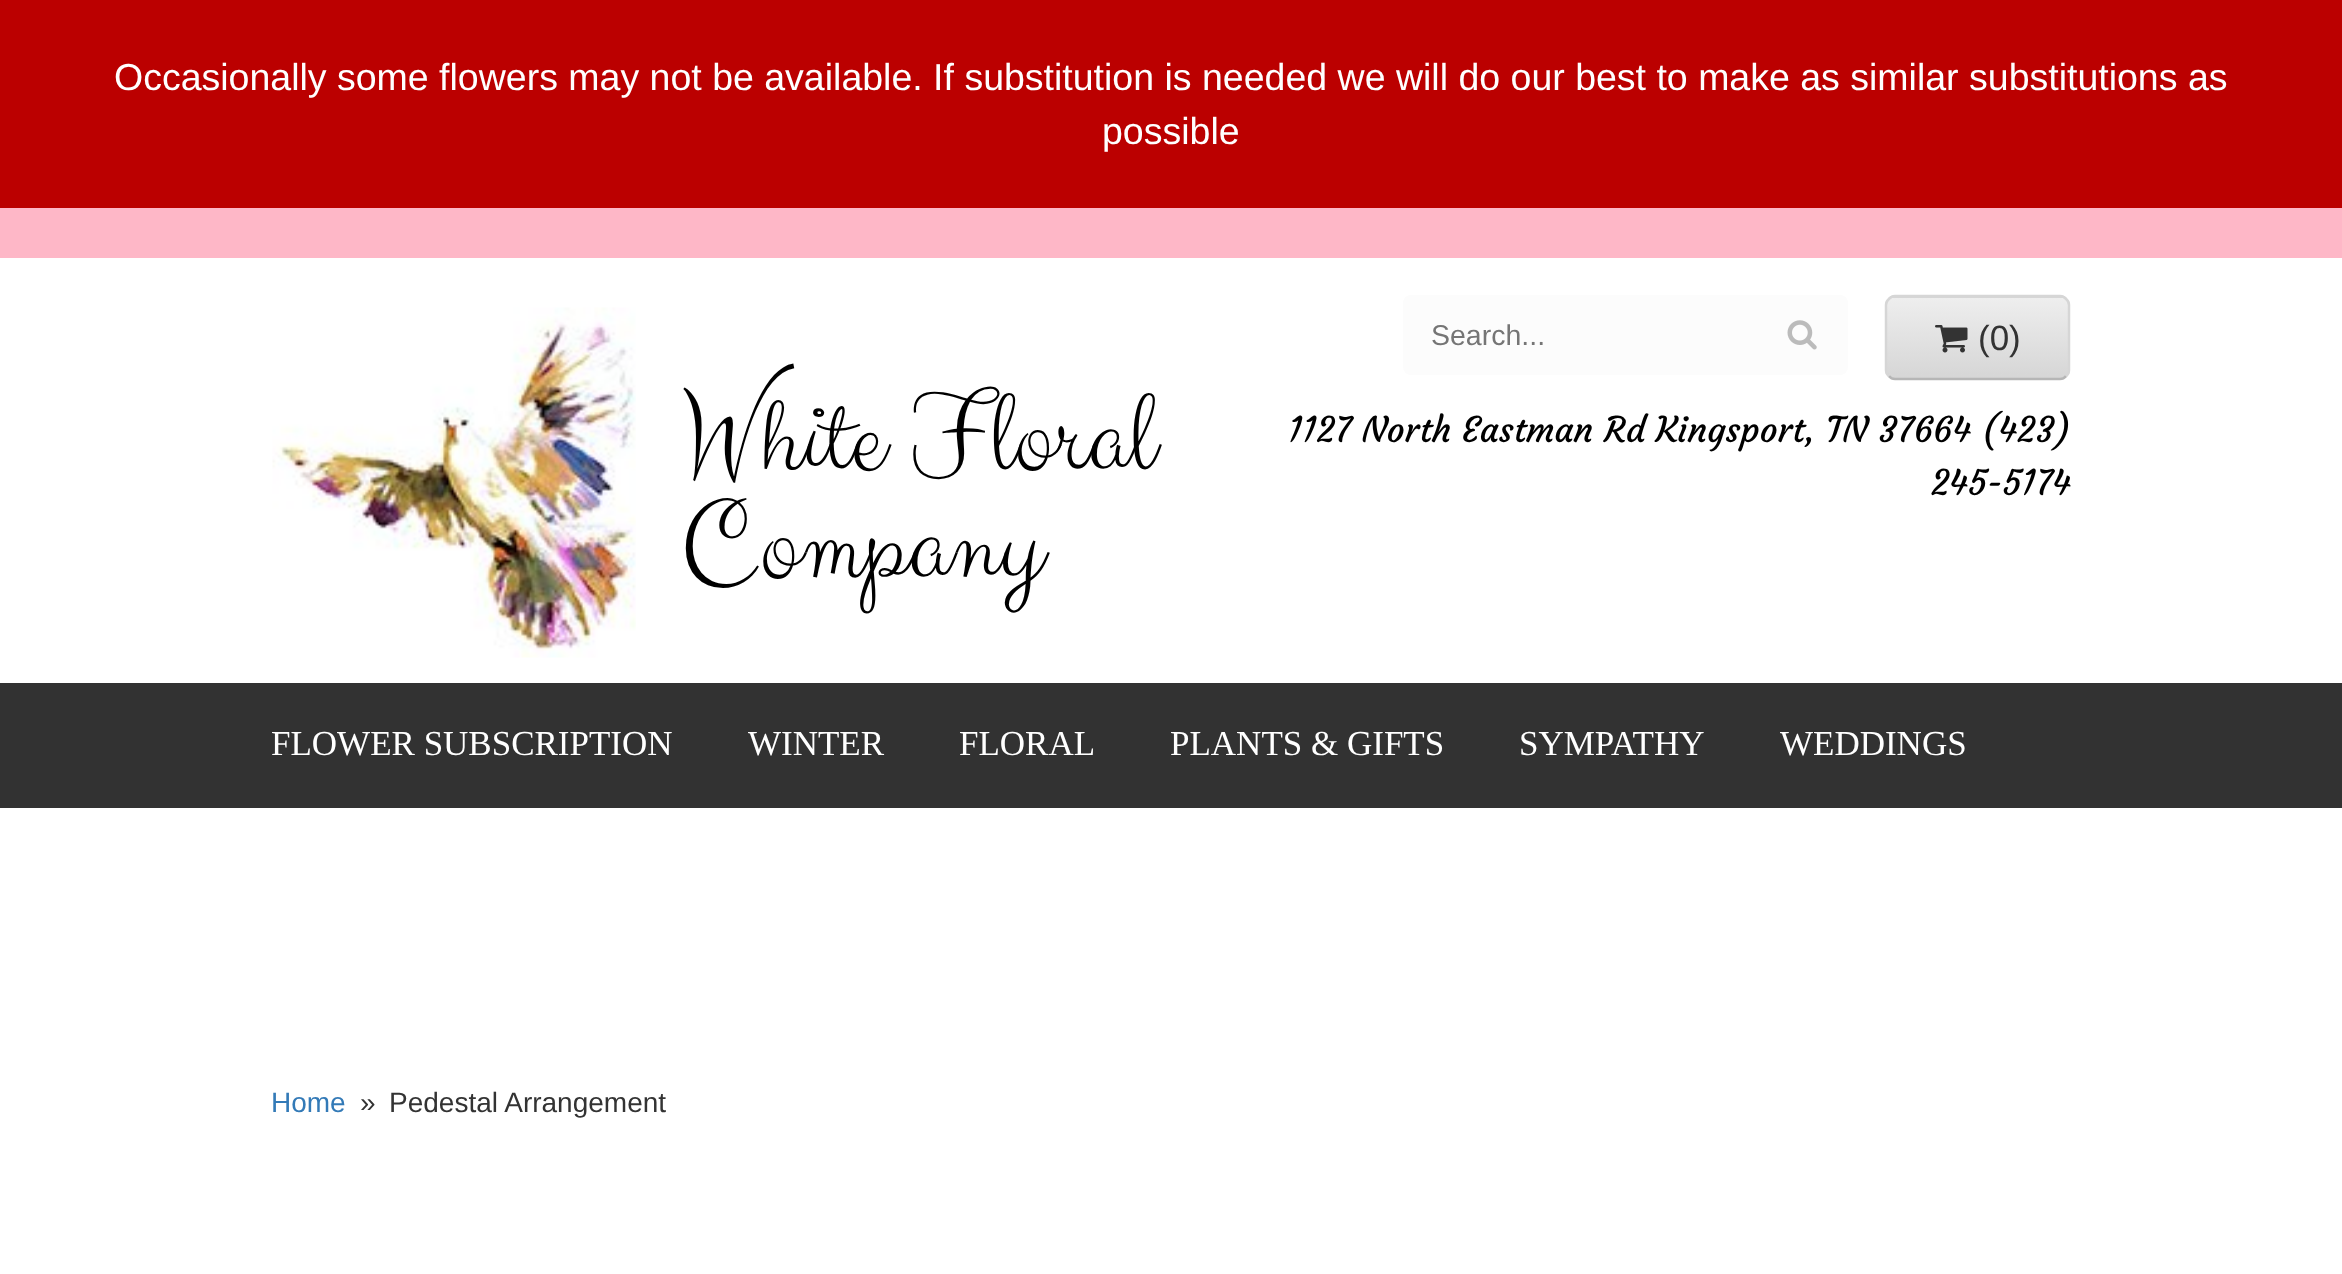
<svg xmlns="http://www.w3.org/2000/svg" width="2342" height="1274" viewBox="0 0 2342 1274">
  <defs>
    <clipPath id="clip1"><rect x="1885" y="295" width="185" height="85" rx="10"/></clipPath>
    <linearGradient id="g1" gradientUnits="userSpaceOnUse" x1="1978" y1="218" x2="1978" y2="298"><stop offset="0" stop-color="rgb(238,238,238)"/><stop offset="1" stop-color="rgb(214,214,214)"/></linearGradient>
    <linearGradient id="g2" gradientUnits="userSpaceOnUse" x1="1978" y1="298" x2="1978" y2="378"><stop offset="0" stop-color="rgb(238,238,238)"/><stop offset="1" stop-color="rgb(214,214,214)"/></linearGradient>
  </defs>
  <rect width="100%" height="100%" fill="rgb(255,255,255)"/>
  <rect x="0" y="0" width="2342" height="208" fill="rgb(187,0,0)"/>
  <g font-family="Liberation Sans" font-size="37.5" fill="rgb(255,255,255)">
    <text x="114" y="90">Occasionally some flowers may not be available. If substitution is needed we will do our best to make as similar substitutions as</text>
    <text x="1102" y="144">possible</text>
  </g>
  <rect x="0" y="208" width="2342" height="50" fill="rgb(254,183,199)"/>
  <rect x="1403" y="295" width="445" height="80" rx="8" fill="rgb(252,252,252)"/>
  <text x="1431" y="345" font-family="Liberation Sans" font-size="28.5" fill="rgb(117,117,117)">Search...</text>
  <image x="1787" y="320" width="30" height="30" href="pic1.png"/>
  <g clip-path="url(#clip1)">
    <rect x="1885" y="295" width="185" height="3" fill="url(#g1)"/>
    <rect x="1885" y="298" width="185" height="80" fill="url(#g2)"/>
  </g>
  <path d="M2066 376C2064.5 378 2062.5 379 2060 379H1895C1892.5 379 1890.5 378 1889 376" fill="none" stroke="rgb(182,182,182)" stroke-width="2.5"/>
  <path d="M1889 376C1887 374.5 1886 372.5 1886 370V305C1886 302.5 1887 300.5 1889 299C1890.5 297 1892.5 296 1895 296H2060C2062.5 296 2064.5 297 2066 299C2068 300.5 2069 302.5 2069 305V370C2069 372.5 2068 374.5 2066 376" fill="none" stroke="rgb(214,214,214)" stroke-width="2.5"/>
  <image x="1935" y="325" width="33" height="28" href="pic2.png"/>
  <text x="1978" y="350" font-family="Liberation Sans" font-size="35" fill="rgb(51,51,51)">(0)</text>
  <image x="272" y="307" width="364" height="351" href="pic3.png"/>
  <g font-family="Clicker Script" font-size="117" fill="rgb(0,0,0)">
    <text>
      <tspan x="681" y="472">White Floral</tspan>
      <tspan x="681" y="580">Company</tspan>
    </text>
  </g>
  <g font-family="Courgette" font-size="35" fill="rgb(0,0,0)">
    <text x="1288" y="442">1127 North Eastman Rd Kingsport, TN 37664 (423)</text>
    <text x="1931" y="495">245-5174</text>
  </g>
  <rect x="0" y="683" width="2342" height="125" fill="rgb(50,50,50)"/>
  <g font-family="Liberation Serif" font-size="35" fill="rgb(255,255,255)">
    <text x="271" y="755">FLOWER SUBSCRIPTION</text>
    <text x="748" y="755">WINTER</text>
    <text x="959" y="755">FLORAL</text>
    <text x="1170" y="755">PLANTS &amp; GIFTS</text>
    <text x="1519" y="755">SYMPATHY</text>
    <text x="1780" y="755">WEDDINGS</text>
  </g>
  <text x="271" y="1112" font-family="Liberation Sans" font-size="28" fill="rgb(51,122,183)">Home</text>
  <g font-family="Liberation Sans" font-size="28" fill="rgb(51,51,51)">
    <text x="360" y="1112">»</text>
    <text x="389" y="1112">Pedestal Arrangement</text>
  </g>
</svg>
